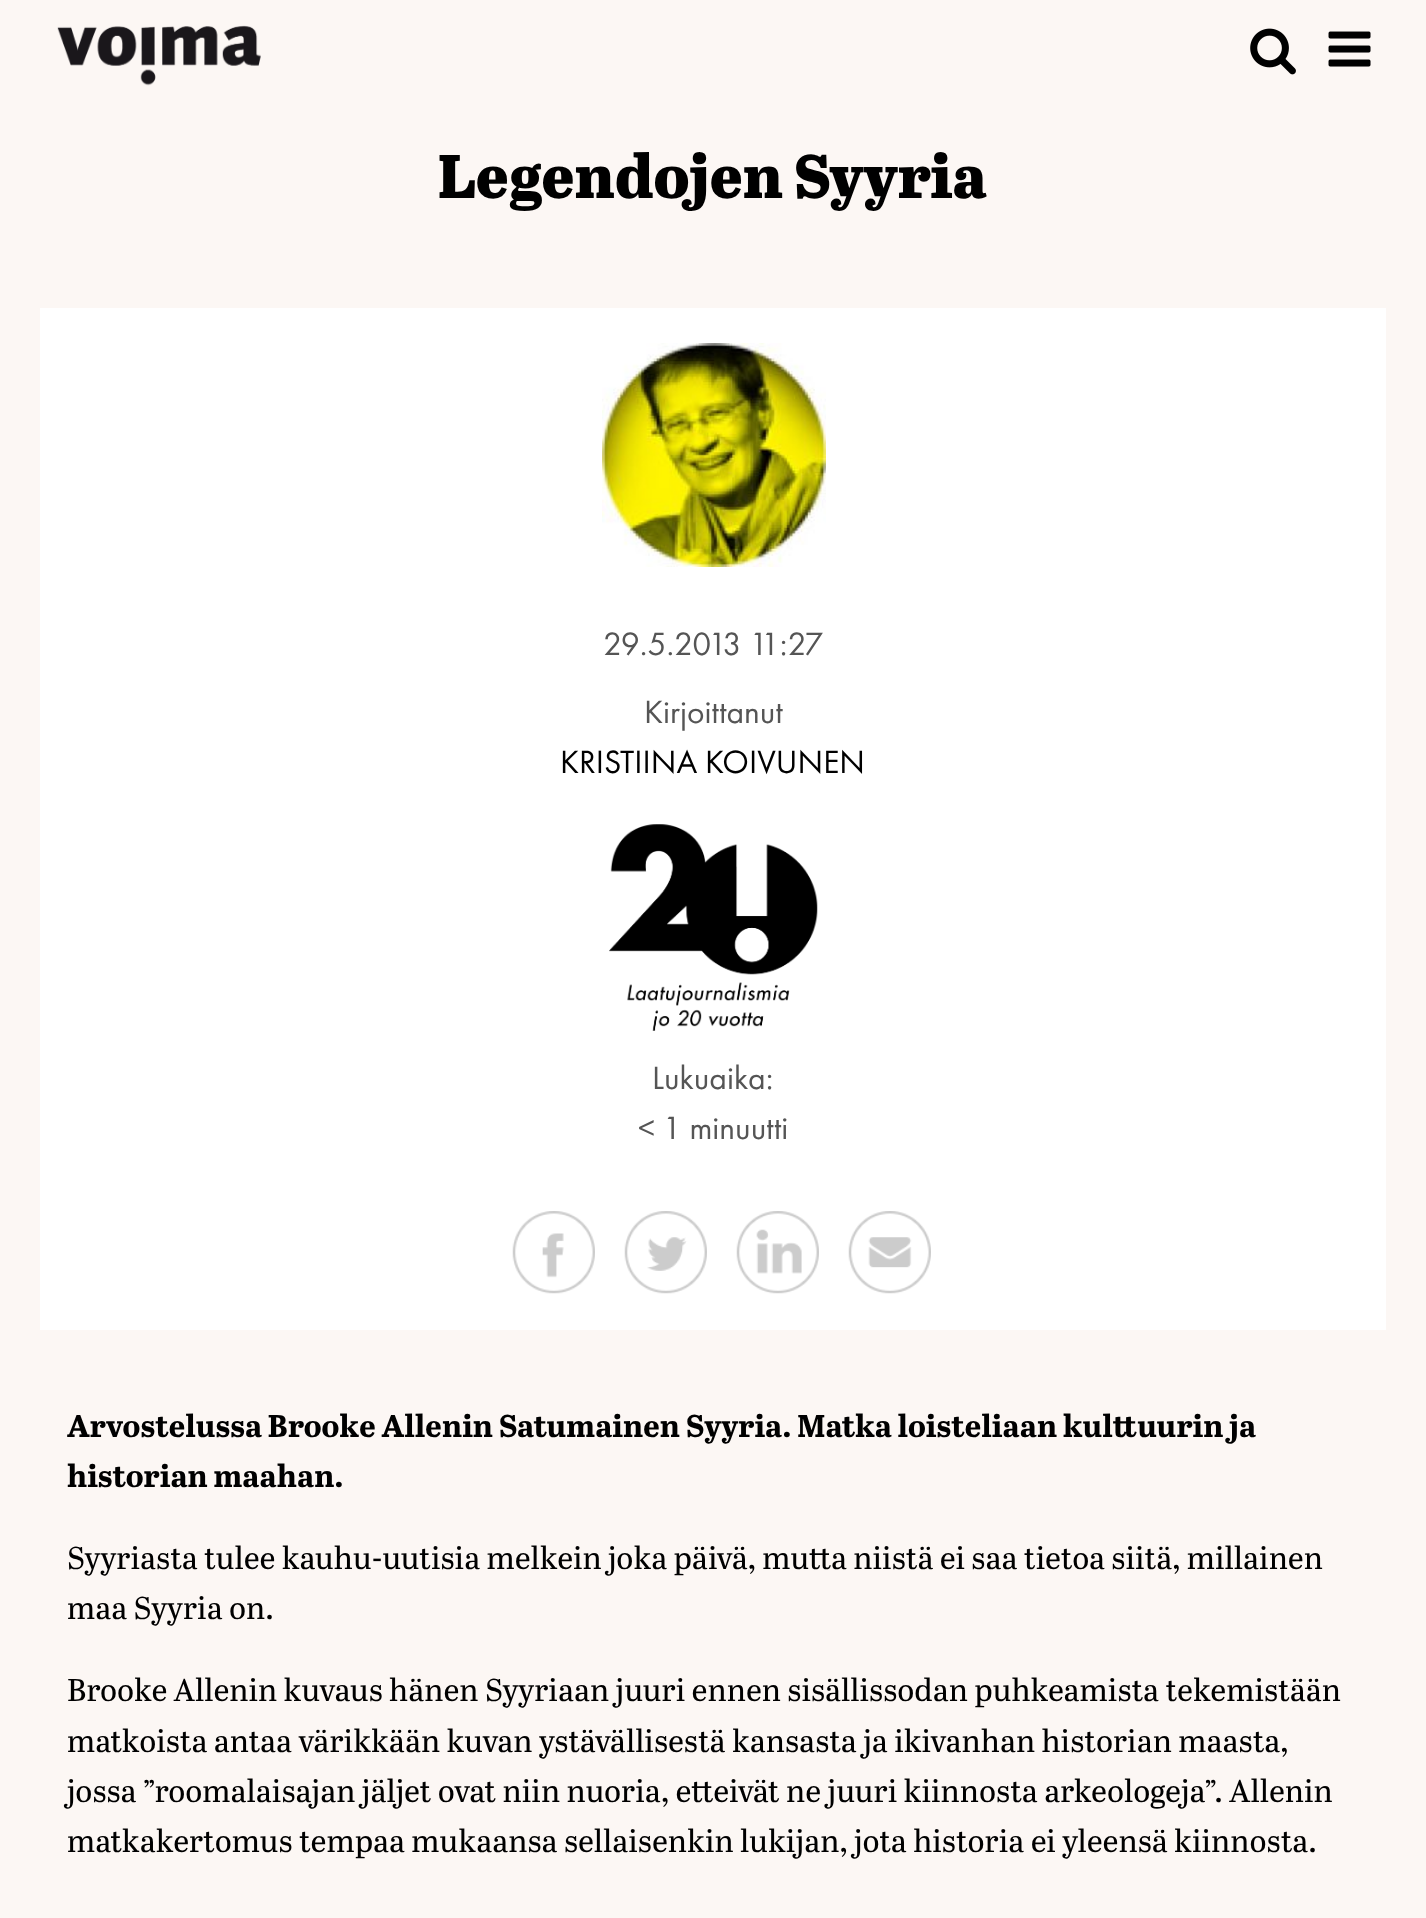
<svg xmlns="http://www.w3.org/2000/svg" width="1426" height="1918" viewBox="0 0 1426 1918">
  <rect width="100%" height="100%" fill="rgb(252,247,244)"/>
  <image x="57" y="25" width="204" height="61" href="pic1.png"/>
  <image x="1250" y="28" width="46" height="47" href="pic2.png"/>
  <image x="1328" y="31" width="43" height="36" href="pic3.png"/>
  <text x="438" y="198" font-family="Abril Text" font-size="61.5" font-weight="800" fill="rgb(0,0,0)">Legendojen Syyria</text>
  <rect x="40" y="308" width="1346" height="1022" fill="rgb(255,255,255)"/>
  <image x="602" y="343" width="224" height="224" href="pic4.png"/>
  <g font-family="Futura PT" font-size="33.5" fill="rgb(85,85,85)">
    <text x="603" y="655">29.5.2013 11:27</text>
    <text x="644" y="723">Kirjoittanut</text>
  </g>
  <text x="560" y="773" font-family="Futura PT" font-size="33.5" fill="rgb(0,0,0)">KRISTIINA KOIVUNEN</text>
  <image x="609" y="824" width="209" height="207" href="pic5.png"/>
  <image x="512" y="1211" width="83" height="83" href="pic6.png"/>
  <image x="624" y="1211" width="83" height="83" href="pic7.png"/>
  <image x="736" y="1211" width="83" height="83" href="pic8.png"/>
  <image x="848" y="1211" width="83" height="83" href="pic9.png"/>
  <g font-family="Futura PT" font-size="33.5" fill="rgb(85,85,85)">
    <text x="652" y="1089">Lukuaika:</text>
    <text x="638" y="1139">&lt; 1 minuutti</text>
  </g>
  <g font-family="Abril Text" font-size="31.5" font-weight="bold" fill="rgb(0,0,0)">
    <text>
      <tspan x="67" y="1437">Arvostelussa Brooke Allenin Satumainen Syyria. Matka loisteliaan kulttuurin ja</tspan>
      <tspan x="67" y="1487">historian maahan.</tspan>
    </text>
  </g>
  <g font-family="Abril Text" font-size="31.5" fill="rgb(0,0,0)">
    <text>
      <tspan x="67" y="1569">Syyriasta tulee kauhu-uutisia melkein joka päivä, mutta niistä ei saa tietoa siitä, millainen</tspan>
      <tspan x="67" y="1619">maa Syyria on.</tspan>
    </text>
    <text>
      <tspan x="67" y="1701">Brooke Allenin kuvaus hänen Syyriaan juuri ennen sisällissodan puhkeamista tekemistään</tspan>
      <tspan x="67" y="1752">matkoista antaa värikkään kuvan ystävällisestä kansasta ja ikivanhan historian maasta,</tspan>
      <tspan x="67" y="1802">jossa ”roomalaisajan jäljet ovat niin nuoria, etteivät ne juuri kiinnosta arkeologeja”. Allenin</tspan>
      <tspan x="67" y="1852">matkakertomus tempaa mukaansa sellaisenkin lukijan, jota historia ei yleensä kiinnosta.</tspan>
    </text>
  </g>
</svg>
